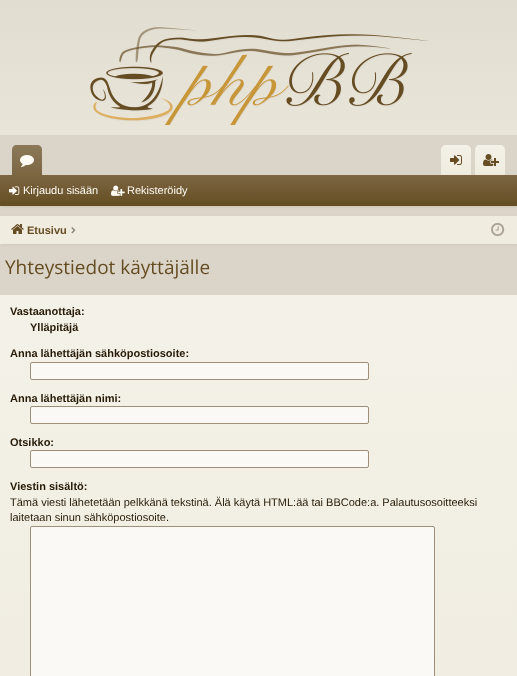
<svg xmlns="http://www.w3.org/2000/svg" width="517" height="676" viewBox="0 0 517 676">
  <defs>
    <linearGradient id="g1" gradientUnits="userSpaceOnUse" x1="258" y1="0" x2="259" y2="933"><stop offset="0" stop-color="rgb(226,221,209)"/><stop offset="0.21" stop-color="rgb(236,232,220)"/><stop offset="1" stop-color="rgb(240,237,224)"/></linearGradient>
    <linearGradient id="g2" gradientUnits="userSpaceOnUse" x1="27" y1="145" x2="27" y2="175"><stop offset="0" stop-color="rgb(255,255,255)" stop-opacity="0.25"/><stop offset="1" stop-color="rgb(255,255,255)" stop-opacity="0.15"/></linearGradient>
    <linearGradient id="g3" gradientUnits="userSpaceOnUse" x1="456" y1="145" x2="456" y2="175"><stop offset="0" stop-color="rgb(255,255,255)" stop-opacity="0.25"/><stop offset="1" stop-color="rgb(255,255,255)" stop-opacity="0"/></linearGradient>
    <linearGradient id="g4" gradientUnits="userSpaceOnUse" x1="490" y1="145" x2="490" y2="175"><stop offset="0" stop-color="rgb(255,255,255)" stop-opacity="0.25"/><stop offset="1" stop-color="rgb(255,255,255)" stop-opacity="0"/></linearGradient>
    <linearGradient id="g5" gradientUnits="userSpaceOnUse" x1="259" y1="175" x2="259" y2="206"><stop offset="0" stop-color="rgb(124,103,67)"/><stop offset="1" stop-color="rgb(101,76,34)"/></linearGradient>
    <linearGradient id="g6" gradientUnits="userSpaceOnUse" x1="258" y1="295" x2="259" y2="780"><stop offset="0" stop-color="rgb(244,241,232)"/><stop offset="1" stop-color="rgb(240,236,224)"/></linearGradient>
  </defs>
  <rect width="100%" height="100%" fill="rgb(255,255,255)"/>
  <rect x="0" y="0" width="517" height="135" fill="url(#g1)"/>
  <image x="90" y="27" width="339" height="98" href="pic1.png"/>
  <rect x="0" y="135" width="517" height="160" fill="rgb(219,213,201)"/>
  <path d="M17 145H37C40 145 42 147 42 150V175H12V150C12 147 14 145 17 145Z" fill="rgb(101,76,34)"/>
  <path d="M17 145H37C40 145 42 147 42 150V175H12V150C12 147 14 145 17 145Z" fill="url(#g2)"/>
  <image x="20" y="155" width="14" height="12" href="pic2.png"/>
  <path d="M446 145H466C469 145 471 147 471 150V175H441V150C441 147 443 145 446 145Z" fill="rgb(240,236,224)"/>
  <path d="M446 145H466C469 145 471 147 471 150V175H441V150C441 147 443 145 446 145Z" fill="url(#g3)"/>
  <path d="M480 145H500C503 145 505 147 505 150V175H475V150C475 147 477 145 480 145Z" fill="rgb(240,236,224)"/>
  <path d="M480 145H500C503 145 505 147 505 150V175H475V150C475 147 477 145 480 145Z" fill="url(#g4)"/>
  <rect x="1" y="176" width="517" height="31" fill="rgba(101,76,34,0.1)" filter="blur(1.5px)"/>
  <rect x="0" y="175" width="517" height="31" fill="url(#g5)"/>
  <path d="M14 174H40C41 174 42 175 42 176H12C12 175 13 174 14 174Z" fill="rgb(101,76,34)"/>
  <path d="M14 174H40C41 174 42 175 42 176H12C12 175 13 174 14 174Z" fill="rgba(255,255,255,0.15)"/>
  <image x="450" y="155" width="12" height="10" href="pic3.png"/>
  <image x="483" y="154" width="16" height="12" href="pic4.png"/>
  <image x="9" y="186" width="11" height="9" href="pic5.png"/>
  <text x="23" y="194" font-family="Liberation Sans" font-size="11" fill="rgb(254,251,245)">Kirjaudu sisään</text>
  <image x="111" y="185" width="14" height="11" href="pic6.png"/>
  <text x="127" y="194" font-family="Liberation Sans" font-size="11" fill="rgb(254,251,245)">Rekisteröidy</text>
  <rect x="1" y="217" width="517" height="28" fill="rgba(101,76,34,0.1)" filter="blur(1.5px)"/>
  <rect x="0" y="216" width="517" height="28" fill="rgb(240,236,224)"/>
  <image x="11" y="224" width="13" height="10" href="pic7.png"/>
  <text x="27" y="234" font-family="Liberation Sans" font-size="11" font-weight="bold" fill="rgb(101,76,34)">Etusivu</text>
  <image x="71" y="227" width="5" height="7" href="pic8.png"/>
  <image x="491" y="222" width="14" height="15" href="pic9.png"/>
  <text x="5" y="274" font-family="Open Sans" font-size="19" fill="rgb(101,76,34)">Yhteystiedot käyttäjälle</text>
  <rect x="0" y="295" width="517" height="381" fill="url(#g6)"/>
  <g font-family="Liberation Sans" font-size="11" font-weight="bold" fill="rgb(39,27,8)">
    <text x="10" y="315">Vastaanottaja:</text>
    <text x="30" y="331">Ylläpitäjä</text>
    <text x="10" y="357">Anna lähettäjän sähköpostiosoite:</text>
  </g>
  <rect x="30.5" y="362.5" width="338" height="17" rx="1.5" fill="rgb(251,249,246)" stroke="rgb(157,143,120)"/>
  <text x="10" y="402" font-family="Liberation Sans" font-size="11" font-weight="bold" fill="rgb(39,27,8)">Anna lähettäjän nimi:</text>
  <rect x="30.5" y="406.5" width="338" height="17" rx="1.5" fill="rgb(251,249,246)" stroke="rgb(157,143,120)"/>
  <text x="10" y="446" font-family="Liberation Sans" font-size="11" font-weight="bold" fill="rgb(39,27,8)">Otsikko:</text>
  <rect x="30.5" y="450.5" width="338" height="17" rx="1.5" fill="rgb(251,249,246)" stroke="rgb(157,143,120)"/>
  <text x="10" y="490" font-family="Liberation Sans" font-size="11" font-weight="bold" fill="rgb(39,27,8)">Viestin sisältö:</text>
  <g font-family="Liberation Sans" font-size="11" fill="rgb(39,27,8)">
    <text>
      <tspan x="10" y="506">Tämä viesti lähetetään pelkkänä tekstinä. Älä käytä HTML:ää tai BBCode:a. Palautusosoitteeksi</tspan>
      <tspan x="10" y="521">laitetaan sinun sähköpostiosoite.</tspan>
    </text>
  </g>
  <rect x="30.5" y="526.5" width="404" height="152" rx="1.5" fill="rgb(251,249,246)" stroke="rgb(157,143,120)"/>
</svg>
